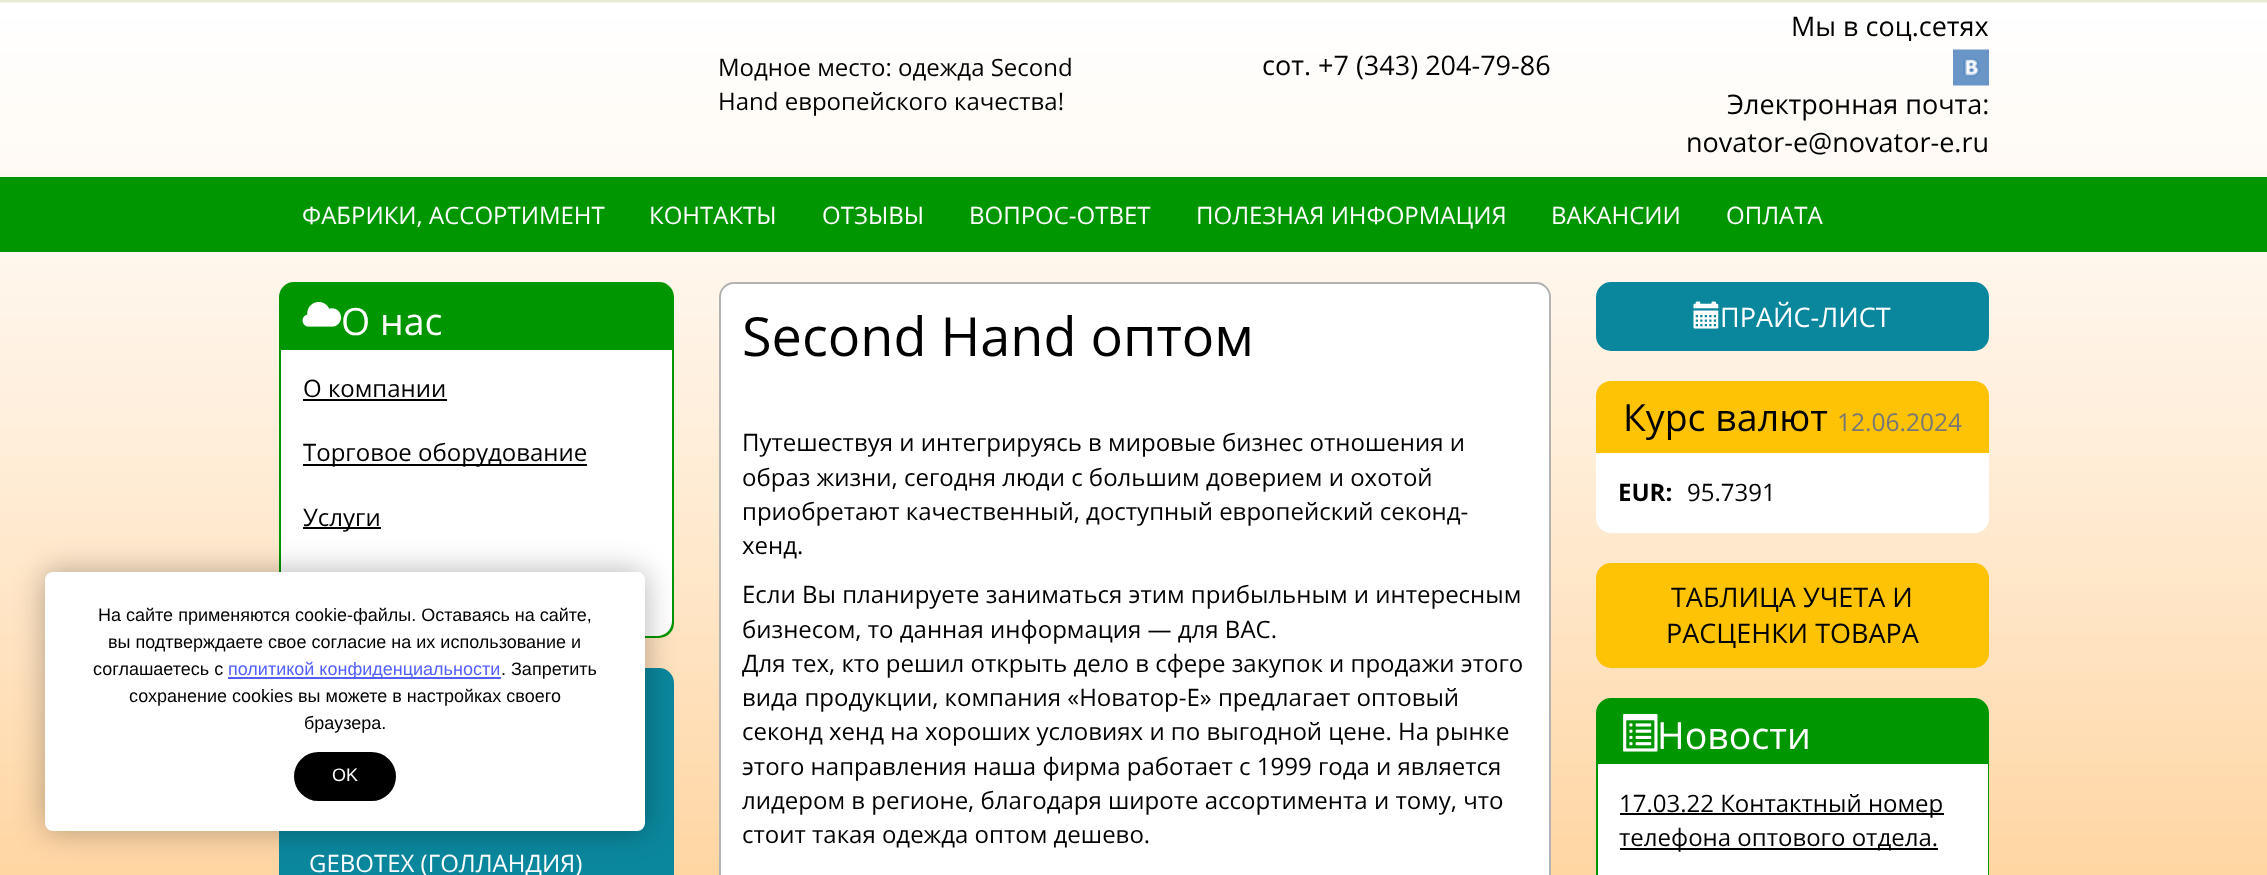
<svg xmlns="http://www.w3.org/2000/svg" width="2267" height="875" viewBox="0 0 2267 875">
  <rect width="100%" height="100%" fill="rgb(201,209,155)"/>
  <image x="0" y="0" width="2267" height="875" href="pic1.png"/>
  <g font-family="Open Sans" font-size="24" fill="rgb(0,0,0)">
    <text>
      <tspan x="718" y="76">Модное место: одежда Second</tspan>
      <tspan x="718" y="110">Hand европейского качества!</tspan>
    </text>
  </g>
  <g font-family="Open Sans" font-size="27" fill="rgb(0,0,0)">
    <text x="1262" y="75">сот. +7 (343) 204-79-86</text>
    <text x="1791" y="36">Мы в соц.сетях</text>
  </g>
  <image x="1953" y="49" width="36" height="37" href="pic2.png"/>
  <g font-family="Open Sans" font-size="27" fill="rgb(0,0,0)">
    <text x="1727" y="114">Электронная почта:</text>
    <text x="1686" y="152">novator-e@novator-e.ru</text>
  </g>
  <rect x="0" y="177" width="2267" height="75" fill="rgb(0,150,0)"/>
  <g font-family="Open Sans" font-size="24" fill="rgb(255,255,255)">
    <text x="302" y="224">ФАБРИКИ, АССОРТИМЕНТ</text>
    <text x="649" y="224">КОНТАКТЫ</text>
    <text x="822" y="224">ОТЗЫВЫ</text>
    <text x="969" y="224">ВОПРОС-ОТВЕТ</text>
    <text x="1196" y="224">ПОЛЕЗНАЯ ИНФОРМАЦИЯ</text>
    <text x="1551" y="224">ВАКАНСИИ</text>
    <text x="1726" y="224">ОПЛАТА</text>
  </g>
  <rect x="280" y="283" width="393" height="354" rx="14" fill="rgb(0,150,0)" stroke="rgb(0,150,0)" stroke-width="2"/>
  <image x="302" y="302" width="40" height="25" href="pic3.png"/>
  <text x="341" y="335" font-family="Open Sans" font-size="37.5" fill="rgb(255,255,255)">О нас</text>
  <path d="M281 350H672V621C672 629.5 665.5 636 657 636H296C287.5 636 281 629.5 281 621Z" fill="rgb(255,255,255)"/>
  <text x="303" y="397" font-family="Open Sans" font-size="24" fill="rgb(0,0,0)">О компании</text>
  <rect x="303" y="399" width="144" height="2" fill="rgb(0,0,0)"/>
  <rect x="303" y="464" width="284" height="2" fill="rgb(0,0,0)"/>
  <text x="303" y="461" font-family="Open Sans" font-size="24" fill="rgb(0,0,0)">Торговое оборудование</text>
  <rect x="303" y="527" width="78" height="2" fill="rgb(0,0,0)"/>
  <text x="303" y="526" font-family="Open Sans" font-size="24" fill="rgb(0,0,0)">Услуги</text>
  <rect x="279" y="668" width="395" height="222" rx="15" fill="rgb(11,135,157)"/>
  <text x="309" y="872" font-family="Open Sans" font-size="24" fill="rgb(255,255,255)">GEBOTEX (ГОЛЛАНДИЯ)</text>
  <rect x="719" y="282" width="832" height="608" rx="15" fill="rgb(255,255,255)"/>
  <rect x="720" y="283" width="830" height="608" rx="14" fill="none" stroke="rgba(0,0,0,0.3)" stroke-width="2"/>
  <text x="742" y="356" font-family="Open Sans" font-size="54" fill="rgb(0,0,0)">Second Hand оптом</text>
  <g font-family="Open Sans" font-size="24" fill="rgb(0,0,0)">
    <text>
      <tspan x="742" y="451">Путешествуя и интегрируясь в мировые бизнес отношения и</tspan>
      <tspan x="742" y="486">образ жизни, сегодня люди с большим доверием и охотой</tspan>
      <tspan x="742" y="520">приобретают качественный, доступный европейский секонд-</tspan>
      <tspan x="742" y="554">хенд.</tspan>
    </text>
    <text>
      <tspan x="742" y="603">Если Вы планируете заниматься этим прибыльным и интересным</tspan>
      <tspan x="742" y="638">бизнесом, то данная информация — для ВАС.</tspan>
      <tspan x="742" y="672">Для тех, кто решил открыть дело в сфере закупок и продажи этого</tspan>
      <tspan x="742" y="706">вида продукции, компания «Новатор-Е» предлагает оптовый</tspan>
      <tspan x="742" y="740">секонд хенд на хороших условиях и по выгодной цене. На рынке</tspan>
      <tspan x="742" y="775">этого направления наша фирма работает с 1999 года и является</tspan>
      <tspan x="742" y="809">лидером в регионе, благодаря широте ассортимента и тому, что</tspan>
      <tspan x="742" y="843">стоит такая одежда оптом дешево.</tspan>
    </text>
  </g>
  <rect x="1596" y="282" width="393" height="69" rx="15" fill="rgb(11,135,157)"/>
  <image x="1693" y="301" width="26" height="28" href="pic4.png"/>
  <text x="1720" y="327" font-family="Open Sans" font-size="27" fill="rgb(255,255,255)">ПРАЙС-ЛИСТ</text>
  <path d="M1611 381H1974C1982.5 381 1989 387.5 1989 396V453H1596V396C1596 387.5 1602.5 381 1611 381Z" fill="rgb(255,195,5)"/>
  <text x="1623" y="431" font-family="Open Sans" font-size="37.5" fill="rgb(0,0,0)">Курс валют</text>
  <text x="1837" y="431" font-family="Open Sans" font-size="24.5" fill="rgb(119,119,119)">12.06.2024</text>
  <path d="M1596 453H1989V518C1989 526.5 1982.5 533 1974 533H1611C1602.5 533 1596 526.5 1596 518Z" fill="rgb(255,255,255)"/>
  <text x="1618" y="501" font-family="Open Sans" font-size="24" font-weight="bold" fill="rgb(0,0,0)">EUR:</text>
  <text x="1687" y="501" font-family="Open Sans" font-size="24" fill="rgb(0,0,0)">95.7391</text>
  <rect x="1596" y="563" width="393" height="105" rx="15" fill="rgb(255,195,5)"/>
  <g font-family="Open Sans" font-size="27" fill="rgb(0,0,0)">
    <text x="1671" y="607">ТАБЛИЦА УЧЕТА И</text>
    <text x="1666" y="643">РАСЦЕНКИ ТОВАРА</text>
  </g>
  <rect x="1597" y="699" width="391" height="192" rx="14" fill="rgb(0,150,0)" stroke="rgb(0,150,0)" stroke-width="2"/>
  <image x="1623" y="714" width="35" height="38" href="pic5.png"/>
  <text x="1657" y="749" font-family="Open Sans" font-size="37.5" fill="rgb(255,255,255)">Новости</text>
  <rect x="1598" y="764" width="390" height="111" fill="rgb(255,255,255)"/>
  <rect x="1620" y="813" width="324" height="2" fill="rgb(0,0,0)"/>
  <text x="1619" y="812" font-family="Open Sans" font-size="24" fill="rgb(0,0,0)">17.03.22 Контактный номер</text>
  <rect x="1620" y="848" width="318" height="2" fill="rgb(0,0,0)"/>
  <text x="1619" y="846" font-family="Open Sans" font-size="24" fill="rgb(0,0,0)">телефона оптового отдела.</text>
  <rect x="45" y="572" width="600" height="259" rx="8" fill="rgba(0,0,0,0.3)" filter="blur(15px)"/>
  <rect x="45" y="572" width="600" height="259" rx="8" fill="rgb(255,255,255)"/>
  <g font-family="Liberation Sans" font-size="18" fill="rgb(0,0,0)">
    <text x="98" y="621">На сайте применяются cookie-файлы. Оставаясь на сайте,</text>
    <text x="108" y="648">вы подтверждаете свое согласие на их использование и</text>
    <text x="93" y="675">соглашаетесь с</text>
  </g>
  <rect x="228" y="677" width="273" height="2" fill="rgb(82,95,251)"/>
  <text x="228" y="675" font-family="Liberation Sans" font-size="18" fill="rgb(82,95,251)">политикой конфиденциальности</text>
  <g font-family="Liberation Sans" font-size="18" fill="rgb(0,0,0)">
    <text x="501" y="675">. Запретить</text>
    <text x="129" y="702">сохранение cookies вы можете в настройках своего</text>
    <text x="304" y="729">браузера.</text>
  </g>
  <rect x="294" y="752" width="102" height="49" rx="24.5" fill="rgb(0,0,0)"/>
  <text x="332" y="781" font-family="Liberation Sans" font-size="18" fill="rgb(255,255,255)">OK</text>
</svg>
